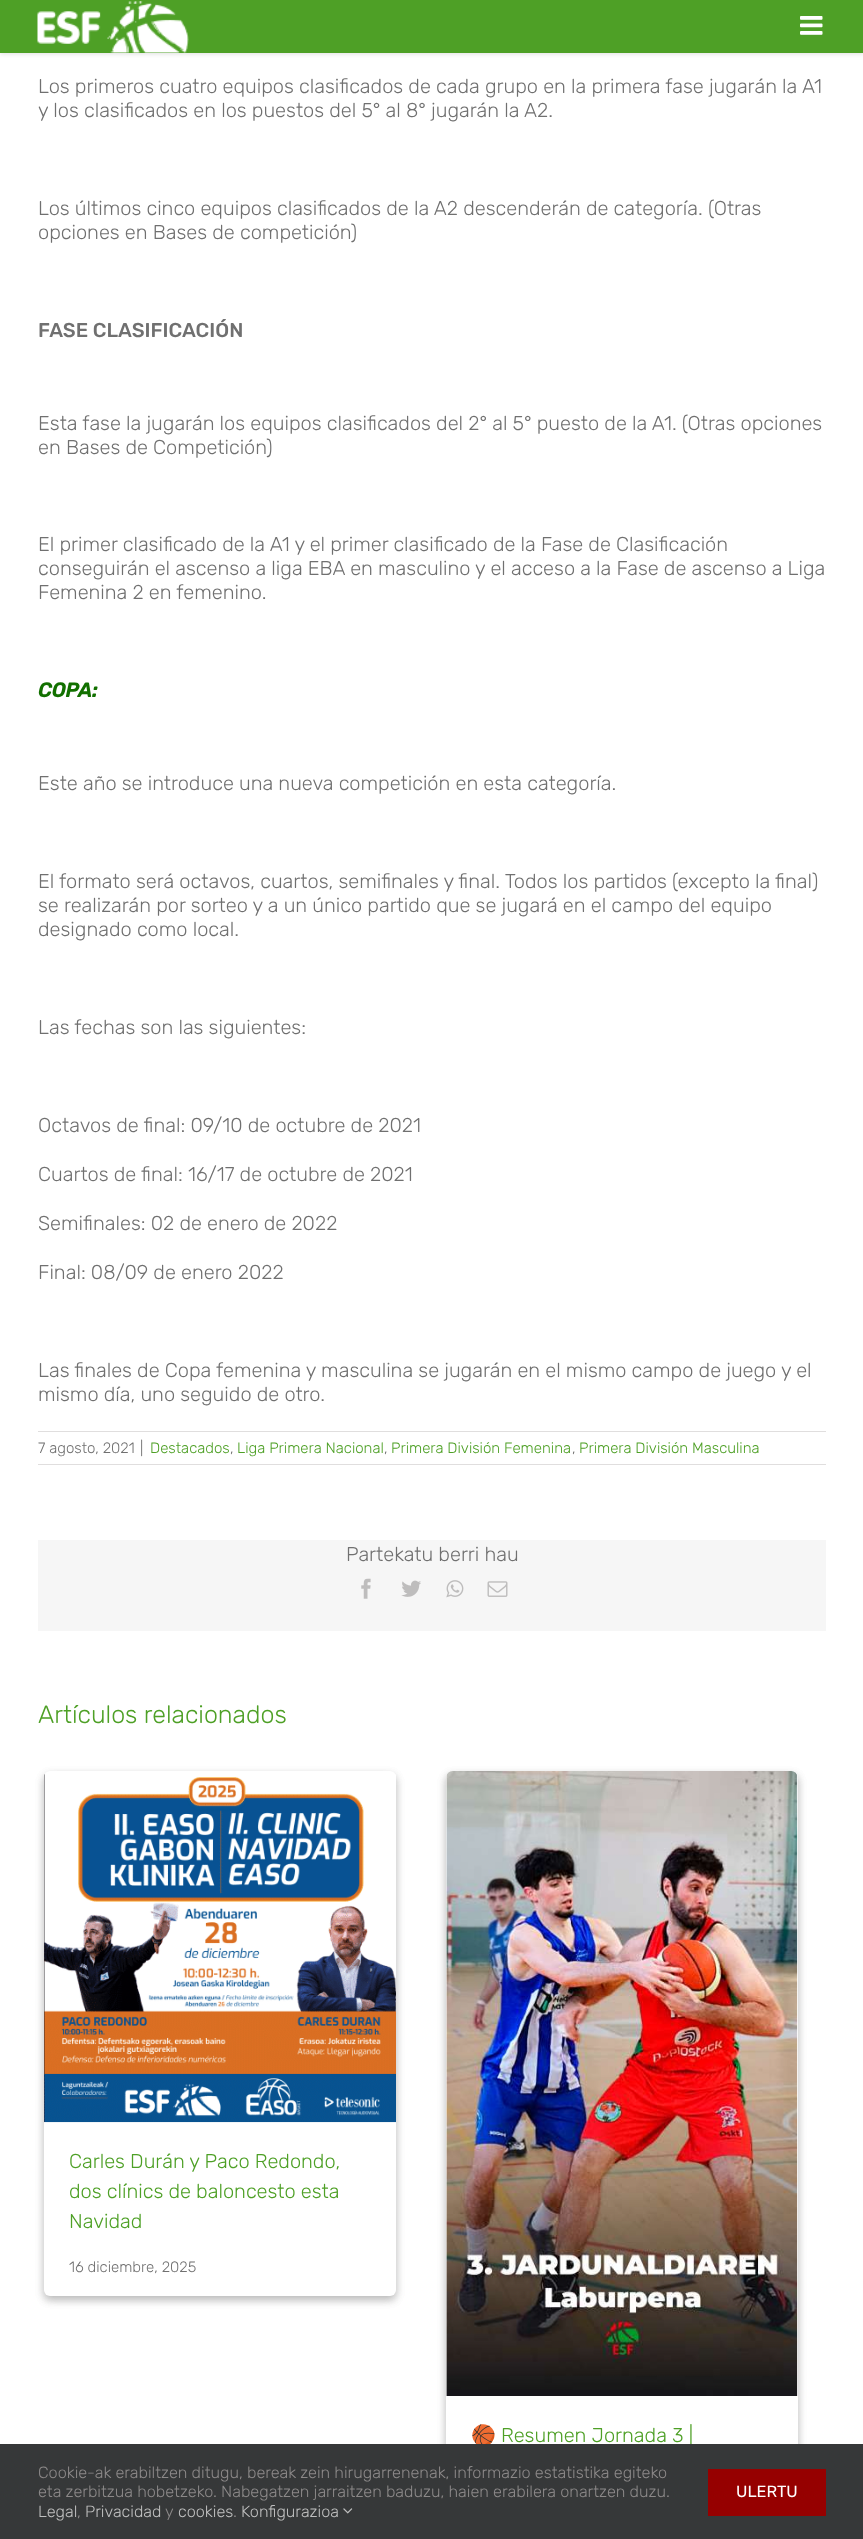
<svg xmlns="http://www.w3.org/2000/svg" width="863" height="2539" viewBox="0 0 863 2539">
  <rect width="100%" height="100%" fill="rgb(255,255,255)"/>
  <rect x="0" y="1" width="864" height="53" fill="rgba(0,0,0,0.12)" filter="blur(2px)"/>
  <rect x="0" y="0" width="863" height="53" fill="rgb(78,160,38)"/>
  <image x="37" y="1" width="152" height="52" href="pic1.png"/>
  <image x="800" y="16" width="23" height="19" href="pic2.png"/>
  <g font-family="Rubik" font-size="20" font-weight="300" fill="rgb(112,112,112)">
    <text>
      <tspan x="38" y="93">Los primeros cuatro equipos clasificados de cada grupo en la primera fase jugarán la A1</tspan>
      <tspan x="38" y="117">y los clasificados en los puestos del 5° al 8° jugarán la A2.</tspan>
    </text>
    <text>
      <tspan x="38" y="215">Los últimos cinco equipos clasificados de la A2 descenderán de categoría. (Otras</tspan>
      <tspan x="38" y="239">opciones en Bases de competición)</tspan>
    </text>
  </g>
  <text x="38" y="337" font-family="Rubik" font-size="20" font-weight="500" fill="rgb(112,112,112)">FASE CLASIFICACIÓN</text>
  <g font-family="Rubik" font-size="20" font-weight="300" fill="rgb(112,112,112)">
    <text>
      <tspan x="38" y="430">Esta fase la jugarán los equipos clasificados del 2° al 5° puesto de la A1. (Otras opciones</tspan>
      <tspan x="38" y="454">en Bases de Competición)</tspan>
    </text>
    <text>
      <tspan x="38" y="551">El primer clasificado de la A1 y el primer clasificado de la Fase de Clasificación</tspan>
      <tspan x="38" y="575">conseguirán el ascenso a liga EBA en masculino y el acceso a la Fase de ascenso a Liga</tspan>
      <tspan x="38" y="599">Femenina 2 en femenino.</tspan>
    </text>
  </g>
  <text x="38" y="697" font-family="Rubik" font-size="20" font-weight="bold" font-style="italic" fill="rgb(18,112,0)">COPA:</text>
  <g font-family="Rubik" font-size="20" font-weight="300" fill="rgb(112,112,112)">
    <text x="38" y="790">Este año se introduce una nueva competición en esta categoría.</text>
    <text>
      <tspan x="38" y="888">El formato será octavos, cuartos, semifinales y final. Todos los partidos (excepto la final)</tspan>
      <tspan x="38" y="912">se realizarán por sorteo y a un único partido que se jugará en el campo del equipo</tspan>
      <tspan x="38" y="936">designado como local.</tspan>
    </text>
    <text x="38" y="1034">Las fechas son las siguientes:</text>
    <text x="38" y="1132">Octavos de final: 09/10 de octubre de 2021</text>
    <text x="38" y="1181">Cuartos de final: 16/17 de octubre de 2021</text>
    <text x="38" y="1230">Semifinales: 02 de enero de 2022</text>
    <text x="38" y="1279">Final: 08/09 de enero 2022</text>
    <text>
      <tspan x="38" y="1377">Las finales de Copa femenina y masculina se jugarán en el mismo campo de juego y el</tspan>
      <tspan x="38" y="1401">mismo día, uno seguido de otro.</tspan>
    </text>
  </g>
  <rect x="38" y="1431" width="788" height="1" fill="rgb(224,222,222)"/>
  <rect x="38" y="1464" width="788" height="1" fill="rgb(224,222,222)"/>
  <g font-family="Rubik" font-size="15" font-weight="300" fill="rgb(112,112,112)">
    <text x="38" y="1453">7 agosto, 2021</text>
    <text x="140" y="1453">|</text>
  </g>
  <text x="150" y="1453" font-family="Rubik" font-size="15" font-weight="300" fill="rgb(78,160,38)">Destacados</text>
  <text x="230" y="1453" font-family="Rubik" font-size="15" font-weight="300" fill="rgb(112,112,112)">,</text>
  <text x="237" y="1453" font-family="Rubik" font-size="15" font-weight="300" fill="rgb(78,160,38)">Liga Primera Nacional</text>
  <text x="384" y="1453" font-family="Rubik" font-size="15" font-weight="300" fill="rgb(112,112,112)">,</text>
  <text x="391" y="1453" font-family="Rubik" font-size="15" font-weight="300" fill="rgb(78,160,38)">Primera División Femenina</text>
  <text x="572" y="1453" font-family="Rubik" font-size="15" font-weight="300" fill="rgb(112,112,112)">,</text>
  <text x="579" y="1453" font-family="Rubik" font-size="15" font-weight="300" fill="rgb(78,160,38)">Primera División Masculina</text>
  <rect x="38" y="1540" width="788" height="91" fill="rgb(246,246,246)"/>
  <text x="346" y="1561" font-family="Rubik" font-size="20" font-weight="300" fill="rgb(112,112,112)">Partekatu berri hau</text>
  <image x="361" y="1578" width="10" height="21" href="pic3.png"/>
  <image x="401" y="1580" width="20" height="17" href="pic4.png"/>
  <image x="446" y="1580" width="18" height="18" href="pic5.png"/>
  <image x="487" y="1581" width="21" height="16" href="pic6.png"/>
  <text x="38" y="1723" font-family="Rubik" font-size="25" font-weight="300" fill="rgb(78,160,38)">Artículos relacionados</text>
  <rect x="44" y="1775" width="352" height="525" rx="6" fill="rgba(0,0,0,0.15)" filter="blur(4px)"/>
  <rect x="44" y="1775" width="352" height="525" rx="6" fill="rgba(0,0,0,0.15)" filter="blur(4px)"/>
  <rect x="44" y="1771" width="352" height="525" rx="6" fill="rgb(255,255,255)"/>
  <image x="44" y="1774" width="352" height="349" href="pic7.png"/>
  <g font-family="Rubik" font-size="20" font-weight="300" fill="rgb(78,160,38)">
    <text>
      <tspan x="69" y="2168">Carles Durán y Paco Redondo,</tspan>
      <tspan x="69" y="2198">dos clínics de baloncesto esta</tspan>
      <tspan x="69" y="2228">Navidad</tspan>
    </text>
  </g>
  <text x="69" y="2272" font-family="Rubik" font-size="15" font-weight="300" fill="rgb(112,112,112)">16 diciembre, 2025</text>
  <rect x="446" y="1775" width="352" height="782" rx="6" fill="rgba(0,0,0,0.15)" filter="blur(4px)"/>
  <rect x="446" y="1775" width="352" height="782" rx="6" fill="rgba(0,0,0,0.15)" filter="blur(4px)"/>
  <rect x="446" y="1771" width="352" height="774" rx="6" fill="rgb(255,255,255)"/>
  <image x="446" y="1771" width="352" height="625" href="pic8.png"/>
  <text x="471" y="2442" font-family="Noto Color Emoji" font-size="20" fill="rgb(78,160,38)">🏀</text>
  <text x="501" y="2442" font-family="Rubik" font-size="20" font-weight="300" fill="rgb(78,160,38)">Resumen Jornada 3 |</text>
  <rect x="0" y="2444" width="863" height="95" fill="rgb(54,56,57)"/>
  <g font-family="Rubik" font-size="16.25" font-weight="300" fill="rgb(140,137,137)">
    <text>
      <tspan x="38" y="2478">Cookie-ak erabiltzen ditugu, bereak zein hirugarrenenak, informazio estatistika egiteko</tspan>
      <tspan x="38" y="2497">eta zerbitzua hobetzeko. Nabegatzen jarraitzen baduzu, haien erabilera onartzen duzu.</tspan>
    </text>
  </g>
  <g font-family="Rubik" font-size="16.25" font-weight="300" fill="rgb(191,191,191)">
    <text x="38" y="2517">Legal</text>
    <text x="85" y="2517">Privacidad</text>
  </g>
  <text x="165" y="2517" font-family="Rubik" font-size="16.25" font-weight="300" fill="rgb(140,137,137)">y</text>
  <g font-family="Rubik" font-size="16.25" font-weight="300" fill="rgb(191,191,191)">
    <text x="178" y="2517">cookies</text>
    <text x="241" y="2517">Konfigurazioa</text>
  </g>
  <image x="343" y="2508" width="10" height="6" href="pic9.png"/>
  <g font-family="Rubik" font-size="16.25" font-weight="300" fill="rgb(140,137,137)">
    <text x="77" y="2517">,</text>
    <text x="233" y="2517">.</text>
  </g>
  <rect x="708" y="2469" width="118" height="47" fill="rgb(150,0,0)"/>
  <text x="736" y="2497" font-family="Rubik" font-size="16.25" fill="rgb(255,255,255)">ULERTU</text>
</svg>
